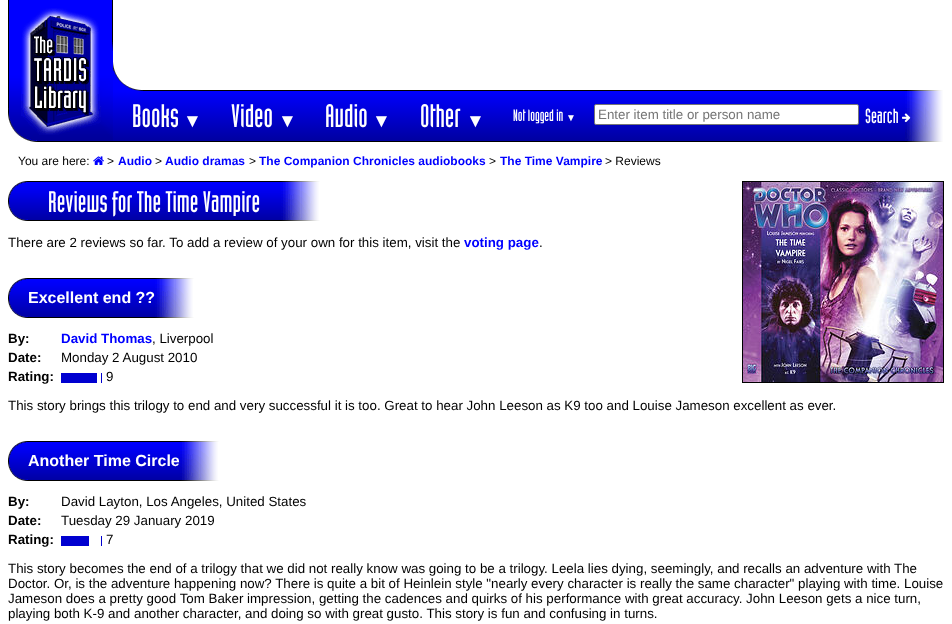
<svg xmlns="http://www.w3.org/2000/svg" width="952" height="624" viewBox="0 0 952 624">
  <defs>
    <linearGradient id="g1" gradientUnits="userSpaceOnUse" x1="509" y1="91" x2="509" y2="141"><stop offset="0" stop-color="rgb(0,0,255)"/><stop offset="1" stop-color="rgb(0,0,160)"/></linearGradient>
  </defs>
  <rect width="100%" height="100%" fill="rgb(255,255,255)"/>
  <image x="8" y="0" width="105" height="142" href="pic1.png"/>
  <image x="21" y="8" width="80" height="127" href="pic2.png"/>
  <image x="113" y="62" width="28" height="28" href="pic3.png"/>
  <rect x="143" y="90" width="764" height="1" fill="rgb(0,0,0)"/>
  <image x="907" y="90" width="37" height="1" href="pic4.png"/>
  <image x="113" y="90" width="30" height="1" href="pic5.png"/>
  <rect x="113" y="91" width="792" height="50" fill="url(#g1)"/>
  <text x="132" y="127" font-family="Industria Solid" font-size="32" fill="rgb(255,255,255)">Books</text>
  <text x="183" y="127" font-family="Liberation Sans" font-size="19" fill="rgb(255,255,255)">▼</text>
  <text x="231" y="127" font-family="Industria Solid" font-size="32" fill="rgb(255,255,255)">Video</text>
  <text x="278" y="127" font-family="Liberation Sans" font-size="19" fill="rgb(255,255,255)">▼</text>
  <text x="325" y="127" font-family="Industria Solid" font-size="32" fill="rgb(255,255,255)">Audio</text>
  <text x="372" y="127" font-family="Liberation Sans" font-size="19" fill="rgb(255,255,255)">▼</text>
  <text x="420" y="127" font-family="Industria Solid" font-size="32" fill="rgb(255,255,255)">Other</text>
  <text x="466" y="127" font-family="Liberation Sans" font-size="19" fill="rgb(255,255,255)">▼</text>
  <text x="513" y="121" font-family="Industria Solid" font-size="16" fill="rgb(255,255,255)">Not logged in</text>
  <text x="566" y="121" font-family="Liberation Sans" font-size="10" fill="rgb(255,255,255)">▼</text>
  <rect x="594.5" y="104.5" width="264" height="20" rx="1.5" fill="rgb(255,255,255)" stroke="rgb(118,118,118)"/>
  <text x="598" y="119" font-family="Liberation Sans" font-size="13.33" fill="rgb(117,117,117)">Enter item title or person name</text>
  <text x="865" y="123" font-family="Industria Solid" font-size="20" fill="rgb(255,255,255)">Search</text>
  <image x="905" y="91" width="39" height="50" href="pic7.png"/>
  <image x="902" y="113" width="9" height="10" href="pic6.png"/>
  <rect x="113" y="141" width="794" height="1" fill="rgb(0,0,0)"/>
  <image x="907" y="141" width="37" height="1" href="pic4.png"/>
  <text x="18" y="165" font-family="Liberation Sans" font-size="12" fill="rgb(0,0,0)">You are here:</text>
  <image x="93" y="156" width="11" height="9" href="pic8.png"/>
  <text x="107" y="165" font-family="Liberation Sans" font-size="12" fill="rgb(0,0,0)">&gt;</text>
  <text x="118" y="165" font-family="Liberation Sans" font-size="12" font-weight="bold" fill="rgb(0,0,255)">Audio</text>
  <text x="155" y="165" font-family="Liberation Sans" font-size="12" fill="rgb(0,0,0)">&gt;</text>
  <text x="165" y="165" font-family="Liberation Sans" font-size="12" font-weight="bold" fill="rgb(0,0,255)">Audio dramas</text>
  <text x="249" y="165" font-family="Liberation Sans" font-size="12" fill="rgb(0,0,0)">&gt;</text>
  <text x="259" y="165" font-family="Liberation Sans" font-size="12" font-weight="bold" fill="rgb(0,0,255)">The Companion Chronicles audiobooks</text>
  <text x="489" y="165" font-family="Liberation Sans" font-size="12" fill="rgb(0,0,0)">&gt;</text>
  <text x="500" y="165" font-family="Liberation Sans" font-size="12" font-weight="bold" fill="rgb(0,0,255)">The Time Vampire</text>
  <text x="605" y="165" font-family="Liberation Sans" font-size="12" fill="rgb(0,0,0)">&gt; Reviews</text>
  <image x="8" y="181" width="20" height="1" href="pic9.png"/>
  <rect x="28" y="181" width="253" height="1" fill="rgb(0,0,0)"/>
  <image x="281" y="181" width="39" height="1" href="pic10.png"/>
  <image x="8" y="182" width="20" height="37" href="pic11.png"/>
  <image x="8" y="201" width="20" height="19" href="pic12.png"/>
  <image x="28" y="182" width="253" height="38" href="pic13.png"/>
  <text x="48" y="212" font-family="Industria Solid" font-size="29.25" fill="rgb(255,255,255)">Reviews for The Time Vampire</text>
  <image x="281" y="182" width="39" height="38" href="pic14.png"/>
  <image x="8" y="220" width="20" height="1" href="pic9.png"/>
  <rect x="28" y="220" width="253" height="1" fill="rgb(0,0,0)"/>
  <image x="281" y="220" width="39" height="1" href="pic10.png"/>
  <rect x="742.5" y="181.5" width="201" height="201" fill="none" stroke="rgb(0,0,0)"/>
  <image x="743" y="182" width="200" height="200" href="pic15.png"/>
  <text x="8" y="247" font-family="Liberation Sans" font-size="13.33" fill="rgb(0,0,0)">There are 2 reviews so far. To add a review of your own for this item, visit the</text>
  <text x="464" y="247" font-family="Liberation Sans" font-size="13.33" font-weight="bold" fill="rgb(0,0,255)">voting page</text>
  <text x="539" y="247" font-family="Liberation Sans" font-size="13.33" fill="rgb(0,0,0)">.</text>
  <image x="8" y="278" width="20" height="1" href="pic9.png"/>
  <rect x="28" y="278" width="127" height="1" fill="rgb(0,0,0)"/>
  <image x="155" y="278" width="39" height="1" href="pic10.png"/>
  <image x="8" y="279" width="20" height="37" href="pic11.png"/>
  <image x="8" y="298" width="20" height="19" href="pic12.png"/>
  <image x="28" y="279" width="127" height="38" href="pic16.png"/>
  <text x="28" y="303" font-family="Liberation Sans" font-size="16" font-weight="bold" fill="rgb(255,255,255)">Excellent end ??</text>
  <image x="155" y="279" width="39" height="38" href="pic14.png"/>
  <image x="8" y="317" width="20" height="1" href="pic9.png"/>
  <rect x="28" y="317" width="127" height="1" fill="rgb(0,0,0)"/>
  <image x="155" y="317" width="39" height="1" href="pic10.png"/>
  <text x="8" y="343" font-family="Liberation Sans" font-size="13.33" font-weight="bold" fill="rgb(0,0,0)">By:</text>
  <text x="61" y="343" font-family="Liberation Sans" font-size="13.33" font-weight="bold" fill="rgb(0,0,255)">David Thomas</text>
  <text x="152" y="343" font-family="Liberation Sans" font-size="13.33" fill="rgb(0,0,0)">, Liverpool</text>
  <text x="8" y="362" font-family="Liberation Sans" font-size="13.33" font-weight="bold" fill="rgb(0,0,0)">Date:</text>
  <text x="61" y="362" font-family="Liberation Sans" font-size="13.33" fill="rgb(0,0,0)">Monday 2 August 2010</text>
  <text x="8" y="381" font-family="Liberation Sans" font-size="13.33" font-weight="bold" fill="rgb(0,0,0)">Rating:</text>
  <rect x="61" y="373" width="36" height="10" fill="rgb(0,0,208)"/>
  <rect x="101" y="373" width="1" height="10" fill="rgb(0,0,208)"/>
  <g font-family="Liberation Sans" font-size="13.33" fill="rgb(0,0,0)">
    <text x="106" y="381">9</text>
    <text x="8" y="410">This story brings this trilogy to end and very successful it is too. Great to hear John Leeson as K9 too and Louise Jameson excellent as ever.</text>
  </g>
  <image x="8" y="441" width="20" height="1" href="pic9.png"/>
  <rect x="28" y="441" width="152" height="1" fill="rgb(0,0,0)"/>
  <image x="180" y="441" width="39" height="1" href="pic10.png"/>
  <image x="8" y="442" width="20" height="37" href="pic11.png"/>
  <image x="8" y="461" width="20" height="19" href="pic12.png"/>
  <image x="28" y="442" width="152" height="38" href="pic17.png"/>
  <text x="28" y="466" font-family="Liberation Sans" font-size="16" font-weight="bold" fill="rgb(255,255,255)">Another Time Circle</text>
  <image x="180" y="442" width="39" height="38" href="pic14.png"/>
  <image x="8" y="480" width="20" height="1" href="pic9.png"/>
  <rect x="28" y="480" width="152" height="1" fill="rgb(0,0,0)"/>
  <image x="180" y="480" width="39" height="1" href="pic10.png"/>
  <text x="8" y="506" font-family="Liberation Sans" font-size="13.33" font-weight="bold" fill="rgb(0,0,0)">By:</text>
  <text x="61" y="506" font-family="Liberation Sans" font-size="13.33" fill="rgb(0,0,0)">David Layton, Los Angeles, United States</text>
  <text x="8" y="525" font-family="Liberation Sans" font-size="13.33" font-weight="bold" fill="rgb(0,0,0)">Date:</text>
  <text x="61" y="525" font-family="Liberation Sans" font-size="13.33" fill="rgb(0,0,0)">Tuesday 29 January 2019</text>
  <text x="8" y="544" font-family="Liberation Sans" font-size="13.33" font-weight="bold" fill="rgb(0,0,0)">Rating:</text>
  <rect x="61" y="536" width="28" height="10" fill="rgb(0,0,208)"/>
  <rect x="101" y="536" width="1" height="10" fill="rgb(0,0,208)"/>
  <g font-family="Liberation Sans" font-size="13.33" fill="rgb(0,0,0)">
    <text x="106" y="544">7</text>
    <text>
      <tspan x="8" y="573">This story becomes the end of a trilogy that we did not really know was going to be a trilogy. Leela lies dying, seemingly, and recalls an adventure with The</tspan>
      <tspan x="8" y="588">Doctor. Or, is the adventure happening now? There is quite a bit of Heinlein style "nearly every character is really the same character" playing with time. Louise</tspan>
      <tspan x="8" y="603">Jameson does a pretty good Tom Baker impression, getting the cadences and quirks of his performance with great accuracy. John Leeson gets a nice turn,</tspan>
      <tspan x="8" y="618">playing both K-9 and another character, and doing so with great gusto. This story is fun and confusing in turns.</tspan>
    </text>
  </g>
</svg>
